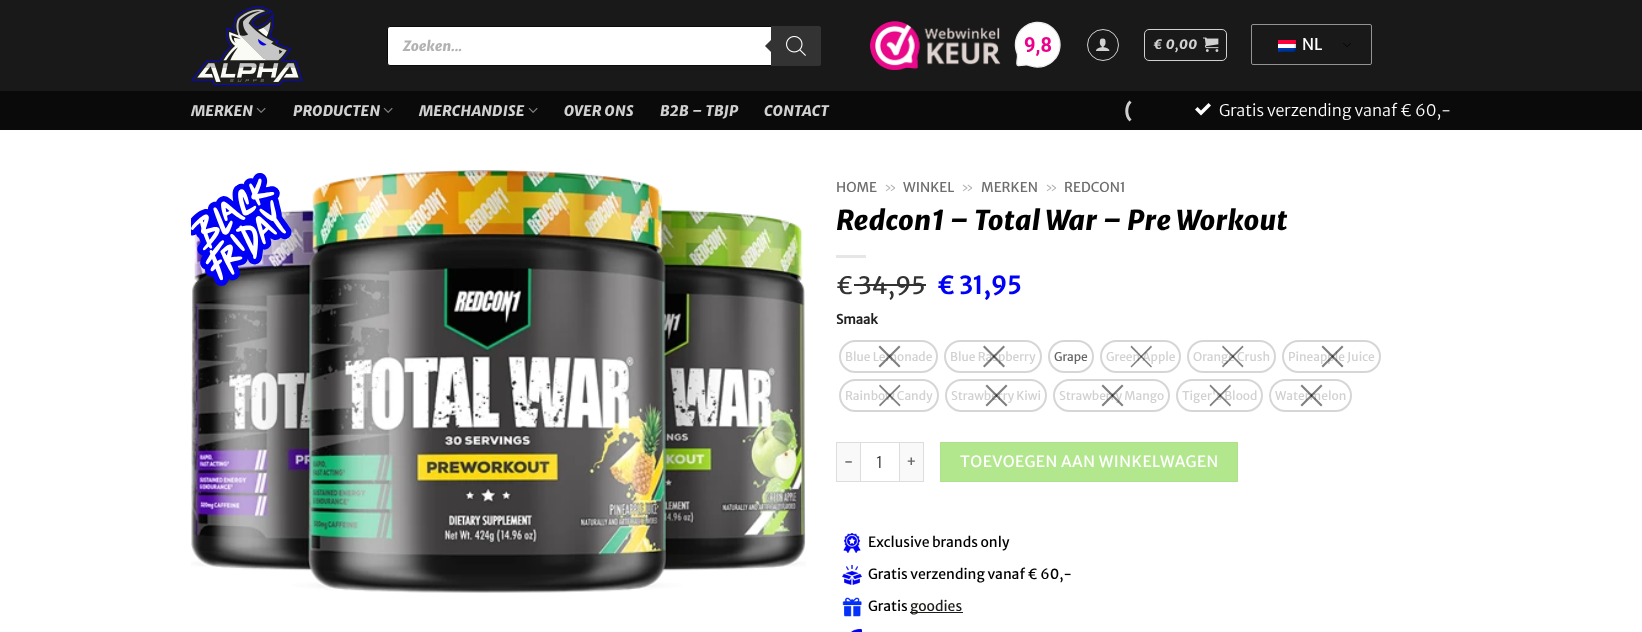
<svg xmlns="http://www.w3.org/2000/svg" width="1642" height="632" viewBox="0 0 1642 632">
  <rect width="100%" height="100%" fill="rgb(255,255,255)"/>
  <rect x="0" y="0" width="1642" height="91" fill="rgb(25,25,25)"/>
  <image x="191" y="6" width="112" height="79" href="pic1.png"/>
  <rect x="387.5" y="26.5" width="433" height="39" rx="2.5" fill="rgb(255,255,255)" stroke="rgb(10,10,10)"/>
  <text x="403" y="51" font-family="Merriweather Sans" font-size="14" font-weight="800" font-style="italic" fill="rgb(178,178,178)">Zoeken...</text>
  <path d="M771 26H819C820 26 821 27 821 28V64C821 65 820 66 819 66H771Z" fill="rgb(51,51,51)"/>
  <path d="M773 38V54L765 46Z" fill="rgb(51,51,51)"/>
  <image x="786" y="36" width="20" height="20" href="pic2.png"/>
  <image x="870" y="21" width="131" height="49" href="pic3.png"/>
  <image x="1014" y="21" width="47" height="47" href="pic4.png"/>
  <circle cx="1103" cy="45" r="15.5" fill="none" stroke="rgb(209,209,209)"/>
  <image x="1096" y="38" width="14" height="13" href="pic5.png"/>
  <rect x="1144.5" y="29.5" width="82" height="31" rx="4.5" fill="none" stroke="rgb(209,209,209)"/>
  <text x="1153" y="49" font-family="Merriweather Sans" font-size="13" font-weight="800" font-style="italic" letter-spacing="0.5" fill="rgb(209,209,209)">€ 0,00</text>
  <image x="1203" y="37" width="16" height="15" href="pic6.png"/>
  <image x="1343" y="43" width="8" height="4" href="pic7.png"/>
  <rect x="1251.5" y="24.5" width="120" height="40" rx="1.5" fill="none" stroke="rgb(148,148,148)"/>
  <image x="1278" y="40" width="18" height="12" href="pic8.png"/>
  <text x="1302" y="50" font-family="Merriweather Sans" font-size="16" fill="rgb(255,255,255)">NL</text>
  <rect x="0" y="91" width="1642" height="39" fill="rgb(10,10,10)"/>
  <text x="191" y="116" font-family="Merriweather Sans" font-size="14.5" font-weight="800" font-style="italic" letter-spacing="0.25" fill="rgb(209,209,209)">MERKEN</text>
  <image x="256" y="107" width="10" height="6" href="pic9.png"/>
  <text x="293" y="116" font-family="Merriweather Sans" font-size="14.5" font-weight="800" font-style="italic" letter-spacing="0.25" fill="rgb(209,209,209)">PRODUCTEN</text>
  <image x="383" y="107" width="10" height="6" href="pic9.png"/>
  <text x="419" y="116" font-family="Merriweather Sans" font-size="14.5" font-weight="800" font-style="italic" letter-spacing="0.25" fill="rgb(209,209,209)">MERCHANDISE</text>
  <image x="528" y="107" width="10" height="6" href="pic9.png"/>
  <g font-family="Merriweather Sans" font-size="14.5" font-weight="800" font-style="italic" letter-spacing="0.25" fill="rgb(209,209,209)">
    <text x="564" y="116">OVER ONS</text>
    <text x="660" y="116">B2B – TBJP</text>
    <text x="764" y="116">CONTACT</text>
  </g>
  <path d="M1130.5 120.5C1125.5 115.5 1125.5 106.5 1130.5 101.5" fill="none" stroke="rgb(206,206,206)" stroke-width="3"/>
  <image x="1195" y="103" width="16" height="13" href="pic10.png"/>
  <text x="1219" y="116" font-family="Merriweather Sans" font-size="16" font-weight="300" fill="rgb(255,255,255)">Gratis verzending vanaf € 60,-</text>
  <image x="191" y="170" width="615" height="423" href="pic11.png"/>
  <image x="191" y="173" width="101" height="113" href="pic12.png"/>
  <text x="836" y="192" font-family="Merriweather Sans" font-size="13.5" fill="rgb(110,110,110)">HOME</text>
  <text x="884" y="192" font-family="Merriweather Sans" font-size="13.5" font-weight="300" fill="rgb(178,178,178)">»</text>
  <text x="903" y="192" font-family="Merriweather Sans" font-size="13.5" fill="rgb(110,110,110)">WINKEL</text>
  <text x="961" y="192" font-family="Merriweather Sans" font-size="13.5" font-weight="300" fill="rgb(178,178,178)">»</text>
  <text x="981" y="192" font-family="Merriweather Sans" font-size="13.5" fill="rgb(110,110,110)">MERKEN</text>
  <text x="1045" y="192" font-family="Merriweather Sans" font-size="13.5" font-weight="300" fill="rgb(178,178,178)">»</text>
  <text x="1064" y="192" font-family="Merriweather Sans" font-size="13.5" fill="rgb(110,110,110)">REDCON1</text>
  <text x="836" y="230" font-family="Merriweather Sans" font-size="27.25" font-weight="800" font-style="italic" fill="rgb(0,0,0)">Redcon1 – Total War – Pre Workout</text>
  <rect x="836" y="255" width="30" height="3" fill="rgb(230,230,230)"/>
  <text x="836" y="294" font-family="Merriweather Sans" font-size="24" fill="rgb(51,51,51)">€ 34,95</text>
  <rect x="854" y="284" width="72" height="2" fill="rgb(51,51,51)"/>
  <text x="937" y="294" font-family="Merriweather Sans" font-size="24" font-weight="bold" fill="rgb(1,1,245)">€ 31,95</text>
  <text x="836" y="324" font-family="Merriweather Sans" font-size="13" font-weight="bold" fill="rgb(34,34,34)">Smaak</text>
  <rect x="840" y="341" width="97" height="31" rx="15.5" fill="none" stroke="rgb(214,214,214)" stroke-width="2"/>
  <text x="845" y="361" font-family="Merriweather Sans" font-size="12" fill="rgb(209,209,209)">Blue Lemonade</text>
  <path d="M878.5 347L880 345.5L900.5 366L899 367.5Z" fill="rgba(0,0,0,0.5)"/>
  <path d="M899 345.5L900.5 347L880 367.5L878.5 366Z" fill="rgba(0,0,0,0.5)"/>
  <rect x="945" y="341" width="96" height="31" rx="15.5" fill="none" stroke="rgb(214,214,214)" stroke-width="2"/>
  <text x="950" y="361" font-family="Merriweather Sans" font-size="12" fill="rgb(209,209,209)">Blue Raspberry</text>
  <path d="M983 347L984.5 345.5L1005 366L1003.5 367.5Z" fill="rgba(0,0,0,0.5)"/>
  <path d="M1003.5 345.5L1005 347L984.5 367.5L983 366Z" fill="rgba(0,0,0,0.5)"/>
  <rect x="1049" y="341" width="44" height="31" rx="15.5" fill="none" stroke="rgb(214,214,214)" stroke-width="2"/>
  <text x="1054" y="361" font-family="Merriweather Sans" font-size="12" fill="rgb(102,102,102)">Grape</text>
  <rect x="1101" y="341" width="79" height="31" rx="15.5" fill="none" stroke="rgb(214,214,214)" stroke-width="2"/>
  <text x="1106" y="361" font-family="Merriweather Sans" font-size="12" fill="rgb(209,209,209)">Green Apple</text>
  <path d="M1130.5 347L1131.5 345.5L1152 366.5L1151 367.5Z" fill="rgba(0,0,0,0.5)"/>
  <path d="M1151 345.5L1152 347L1131.5 367.5L1130.5 366.5Z" fill="rgba(0,0,0,0.5)"/>
  <rect x="1188" y="341" width="87" height="31" rx="15.5" fill="none" stroke="rgb(214,214,214)" stroke-width="2"/>
  <text x="1193" y="361" font-family="Merriweather Sans" font-size="12" fill="rgb(209,209,209)">Orange Crush</text>
  <path d="M1222 347L1223 345.5L1243.5 366L1242.5 367.5Z" fill="rgba(0,0,0,0.5)"/>
  <path d="M1242.5 345.5L1243.5 347L1223 367.5L1222 366Z" fill="rgba(0,0,0,0.5)"/>
  <rect x="1283" y="341" width="97" height="31" rx="15.5" fill="none" stroke="rgb(214,214,214)" stroke-width="2"/>
  <text x="1288" y="361" font-family="Merriweather Sans" font-size="12" fill="rgb(209,209,209)">Pineapple Juice</text>
  <path d="M1321.5 347L1323 345.5L1343.5 366L1342 367.5Z" fill="rgba(0,0,0,0.5)"/>
  <path d="M1342 345.5L1343.5 347L1323 367.5L1321.5 366Z" fill="rgba(0,0,0,0.5)"/>
  <rect x="840" y="380" width="98" height="31" rx="15.5" fill="none" stroke="rgb(214,214,214)" stroke-width="2"/>
  <text x="845" y="400" font-family="Merriweather Sans" font-size="12" fill="rgb(209,209,209)">Rainbow Candy</text>
  <path d="M879 386L880 384.5L900.5 405L899.5 406.5Z" fill="rgba(0,0,0,0.5)"/>
  <path d="M899.5 384.5L900.5 386L880 406.5L879 405Z" fill="rgba(0,0,0,0.5)"/>
  <rect x="946" y="380" width="100" height="31" rx="15.5" fill="none" stroke="rgb(214,214,214)" stroke-width="2"/>
  <text x="951" y="400" font-family="Merriweather Sans" font-size="12" fill="rgb(209,209,209)">Strawberry Kiwi</text>
  <path d="M985.5 386L987 384.5L1007.5 405L1006 406.5Z" fill="rgba(0,0,0,0.5)"/>
  <path d="M1006 384.5L1007.5 386L987 406.5L985.5 405Z" fill="rgba(0,0,0,0.5)"/>
  <rect x="1054" y="380" width="115" height="31" rx="15.5" fill="none" stroke="rgb(214,214,214)" stroke-width="2"/>
  <text x="1059" y="400" font-family="Merriweather Sans" font-size="12" fill="rgb(209,209,209)">Strawberry Mango</text>
  <path d="M1101.5 386L1103 384.5L1123.5 405L1122 406.5Z" fill="rgba(0,0,0,0.5)"/>
  <path d="M1122 384.5L1123.5 386L1103 406.5L1101.5 405Z" fill="rgba(0,0,0,0.5)"/>
  <rect x="1177" y="380" width="85" height="31" rx="15.5" fill="none" stroke="rgb(214,214,214)" stroke-width="2"/>
  <text x="1182" y="400" font-family="Merriweather Sans" font-size="12" fill="rgb(209,209,209)">Tiger's Blood</text>
  <path d="M1209.5 386L1210.5 384.5L1231 405L1230 406.5Z" fill="rgba(0,0,0,0.5)"/>
  <path d="M1230 384.5L1231 386L1210.5 406.5L1209.5 405Z" fill="rgba(0,0,0,0.5)"/>
  <rect x="1270" y="380" width="81" height="31" rx="15.5" fill="none" stroke="rgb(214,214,214)" stroke-width="2"/>
  <text x="1275" y="400" font-family="Merriweather Sans" font-size="12" fill="rgb(209,209,209)">Watermelon</text>
  <path d="M1300.5 386L1302 384.5L1322.5 405L1321 406.5Z" fill="rgba(0,0,0,0.5)"/>
  <path d="M1321 384.5L1322.5 386L1302 406.5L1300.5 405Z" fill="rgba(0,0,0,0.5)"/>
  <rect x="837" y="443" width="23" height="38" fill="rgb(249,249,249)"/>
  <rect x="836" y="442" width="24" height="1" fill="rgb(221,221,221)"/>
  <rect x="836" y="481" width="24" height="1" fill="rgb(221,221,221)"/>
  <rect x="836" y="442" width="1" height="40" fill="rgb(221,221,221)"/>
  <text x="844" y="467" font-family="Merriweather Sans" font-size="15.5" letter-spacing="0.5" fill="rgb(102,102,102)">-</text>
  <rect x="860.5" y="442.5" width="39" height="39" fill="none" stroke="rgb(221,221,221)"/>
  <text x="876" y="468" font-family="Merriweather Sans" font-size="16" font-weight="300" fill="rgb(51,51,51)">1</text>
  <rect x="900" y="443" width="23" height="38" fill="rgb(249,249,249)"/>
  <rect x="900" y="442" width="24" height="1" fill="rgb(221,221,221)"/>
  <rect x="923" y="442" width="1" height="40" fill="rgb(221,221,221)"/>
  <rect x="900" y="481" width="24" height="1" fill="rgb(221,221,221)"/>
  <text x="906" y="467" font-family="Merriweather Sans" font-size="15.5" letter-spacing="0.5" fill="rgb(102,102,102)">+</text>
  <rect x="940.5" y="442.5" width="297" height="39" fill="rgb(179,231,142)" stroke="rgb(175,225,140)"/>
  <text x="960" y="467" font-family="Merriweather Sans" font-size="15.5" letter-spacing="0.5" fill="rgb(255,255,255)">TOEVOEGEN AAN WINKELWAGEN</text>
  <image x="843" y="533" width="18" height="20" href="pic13.png"/>
  <text x="868" y="547" font-family="Merriweather Sans" font-size="14" fill="rgb(0,0,0)">Exclusive brands only</text>
  <image x="842" y="565" width="20" height="20" href="pic14.png"/>
  <text x="868" y="579" font-family="Merriweather Sans" font-size="14" fill="rgb(0,0,0)">Gratis verzending vanaf € 60,-</text>
  <image x="842" y="597" width="20" height="20" href="pic15.png"/>
  <text x="868" y="611" font-family="Merriweather Sans" font-size="14" fill="rgb(0,0,0)">Gratis</text>
  <rect x="910" y="612" width="53" height="1" fill="rgb(29,29,27)"/>
  <text x="910" y="611" font-family="Merriweather Sans" font-size="14" fill="rgb(29,29,27)">goodies</text>
  <image x="850" y="629" width="12" height="3" href="pic16.png"/>
</svg>
